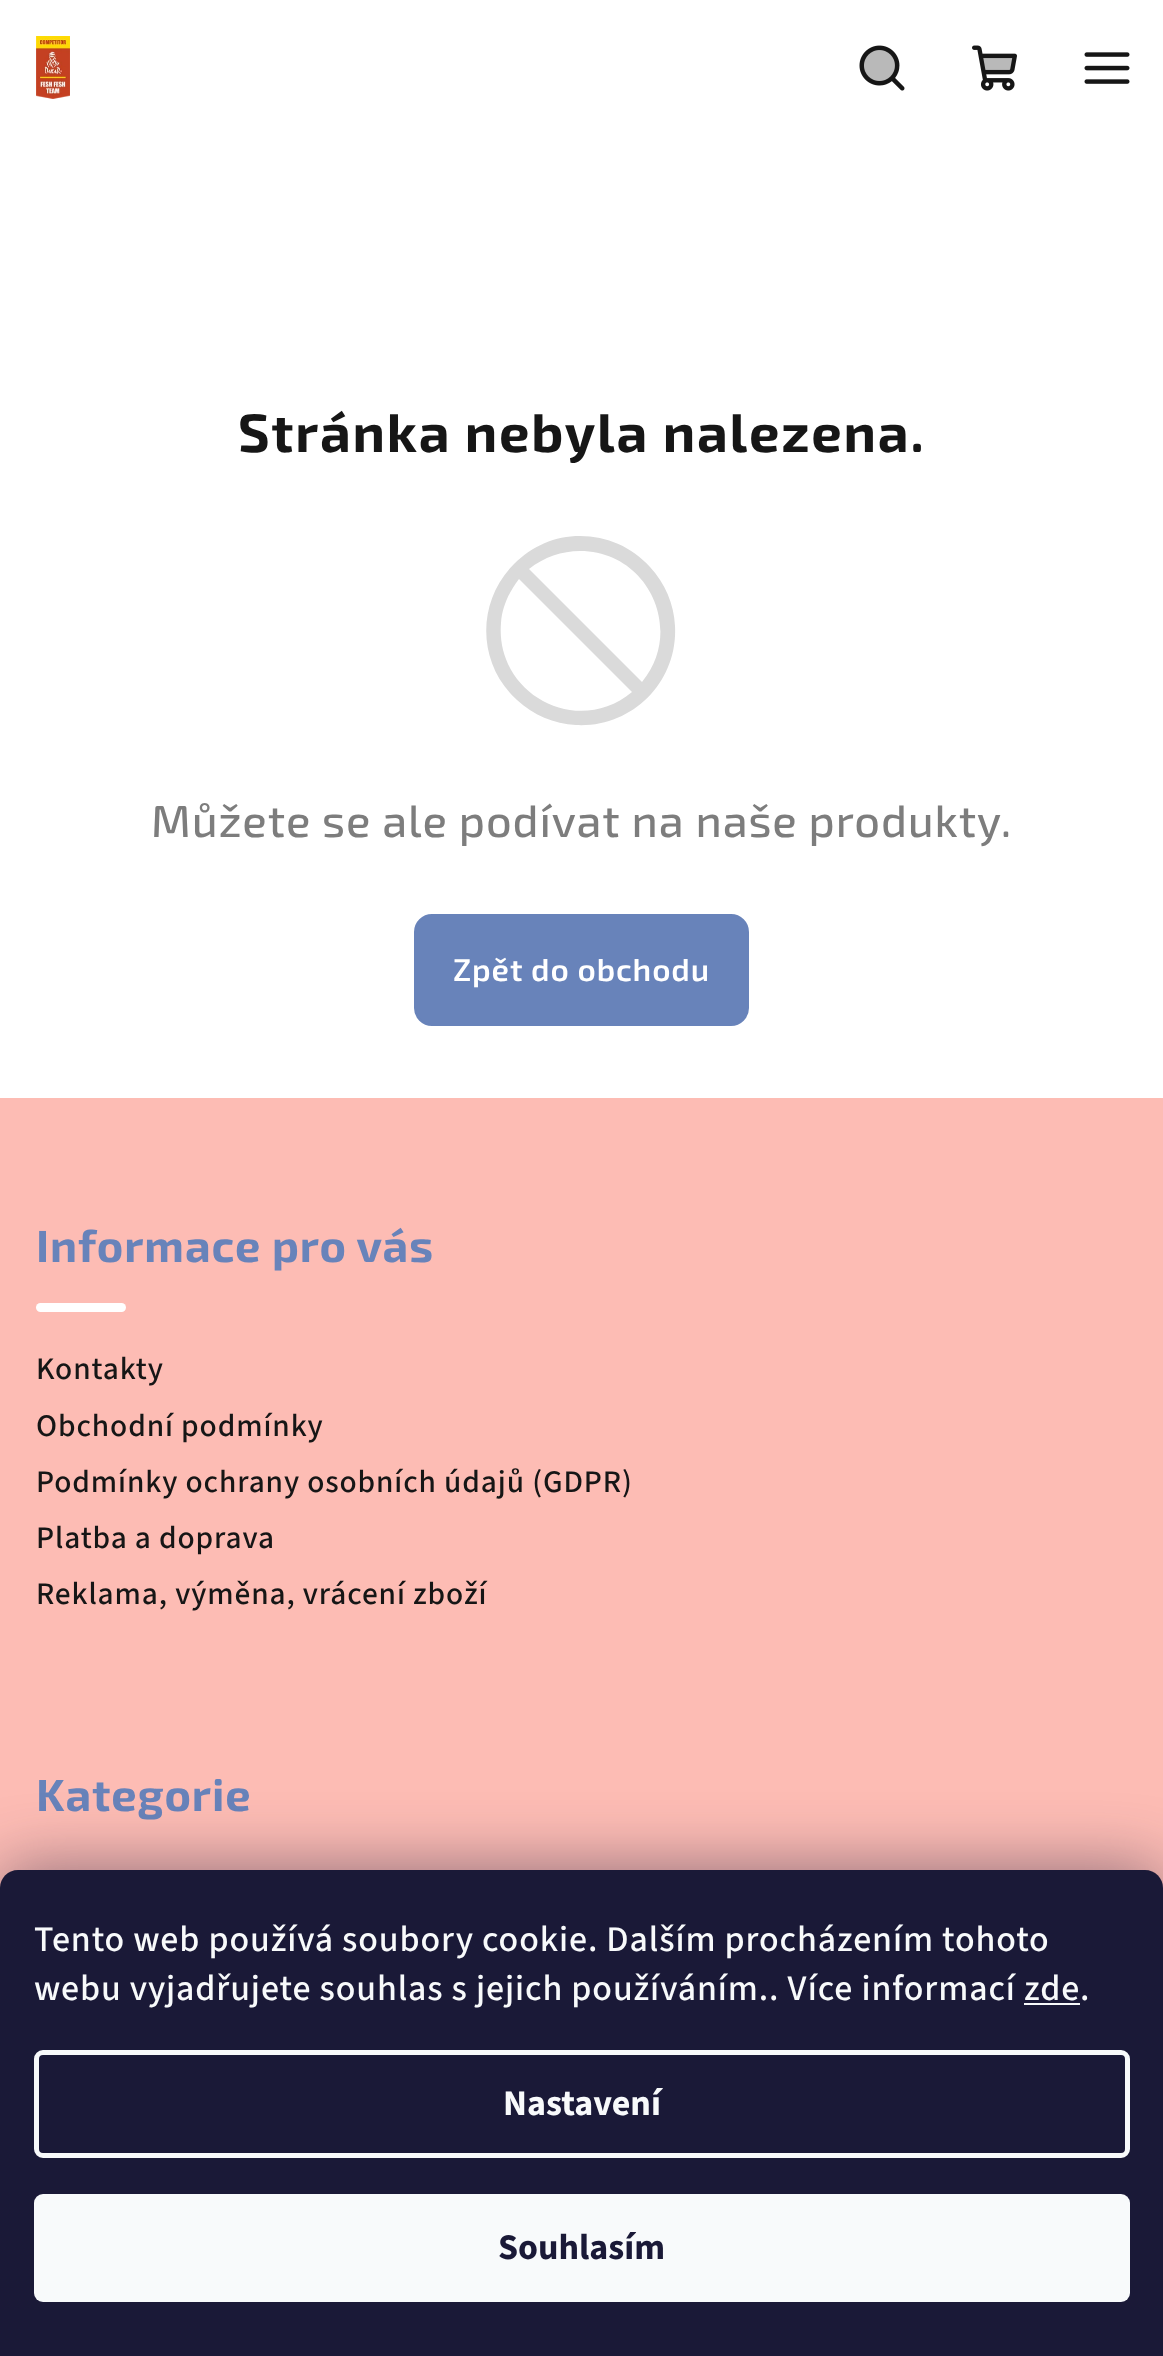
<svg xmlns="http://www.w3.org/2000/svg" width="1163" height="2356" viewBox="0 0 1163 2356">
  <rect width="100%" height="100%" fill="rgb(255,255,255)"/>
  <image x="36" y="36" width="34" height="63" href="pic1.png"/>
  <image x="859" y="45" width="46" height="46" href="pic2.png"/>
  <path d="M879.5 83.5C896.5 83.5 903.5 61.5 890 51.5C887 49 883.5 48 879.5 48C875.5 48 872 49 869 51.5C855.5 61.5 862.5 83.5 879.5 83.5Z" fill="rgba(22,22,22,0.3)"/>
  <image x="972" y="45" width="45" height="46" href="pic3.png"/>
  <path d="M983.5 72H1005C1010.5 72 1011.5 73 1013 67L1015 56H980.5Z" fill="rgba(22,22,22,0.3)"/>
  <image x="1084" y="52" width="46" height="32" href="pic4.png"/>
  <text x="238" y="452" font-family="'Exo 2'" font-size="54" font-weight="bold" letter-spacing="1.8" fill="rgb(22,22,22)">Stránka nebyla nalezena.</text>
  <path d="M580 536C555 536 532 546 514 564C476 602 477 664 517 700C533 715 554 724 576 725C632 728 678 682 675 626C674 604 665 583 650 567C632 547 607 536 580 536ZM580 551C648 551 685 630 642 682L529 569C544 557 562 551 580 551ZM519 579L632 692C577 738 495 694 501 623C502 607 509 592 519 579Z" fill="rgb(218,218,218)"/>
  <text x="151" y="837" font-family="'Exo 2'" font-size="45" font-weight="500" letter-spacing="0.9" fill="rgb(125,125,125)">Můžete se ale podívat na naše produkty.</text>
  <rect x="415" y="915" width="333" height="110" rx="17" fill="rgb(104,131,186)" stroke="rgb(104,131,186)" stroke-width="2"/>
  <text x="453" y="981" font-family="'Exo 2'" font-size="31.5" font-weight="600" letter-spacing="0.9" fill="rgb(255,255,255)">Zpět do obchodu</text>
  <rect x="0" y="1098" width="1163" height="790" fill="rgb(253,188,180)"/>
  <text x="36" y="1262" font-family="'Exo 2'" font-size="45" font-weight="bold" letter-spacing="0.9" fill="rgb(104,131,186)">Informace pro vás</text>
  <rect x="36" y="1303" width="90" height="9" rx="4.5" fill="rgb(255,255,255)"/>
  <g font-family="'Source Sans 3'" font-size="31.5" font-weight="500" letter-spacing="0.9" fill="rgb(22,22,22)">
    <text>
      <tspan x="36" y="1379">Kontakty</tspan>
      <tspan x="36" y="1436">Obchodní podmínky</tspan>
      <tspan x="36" y="1492">Podmínky ochrany osobních údajů (GDPR)</tspan>
      <tspan x="36" y="1548">Platba a doprava</tspan>
      <tspan x="36" y="1604">Reklama, výměna, vrácení zboží</tspan>
    </text>
  </g>
  <text x="36" y="1811" font-family="'Exo 2'" font-size="45" font-weight="bold" letter-spacing="0.9" fill="rgb(104,131,186)">Kategorie</text>
  <rect x="0" y="1870" width="1163" height="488" rx="18" fill="rgba(27,25,57,0.5)" filter="blur(34px)"/>
  <path d="M18 1870H1145C1155 1870 1163 1878 1163 1888V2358H0V1888C0 1878 8 1870 18 1870Z" fill="rgb(26,25,55)"/>
  <g font-family="'Source Sans 3'" font-size="36" font-weight="500" letter-spacing="0.9" fill="rgb(248,250,251)">
    <text>
      <tspan x="34" y="1951">Tento web používá soubory cookie. Dalším procházením tohoto</tspan>
      <tspan x="34" y="2000">webu vyjadřujete souhlas s jejich používáním.. Více informací zde.</tspan>
    </text>
  </g>
  <rect x="1024" y="2003" width="56" height="2" fill="rgb(248,250,251)"/>
  <rect x="36.5" y="2052.5" width="1091" height="103" rx="6.5" fill="none" stroke="rgb(248,250,251)" stroke-width="5"/>
  <text x="503" y="2115" font-family="'Source Sans 3'" font-size="36" font-weight="bold" fill="rgb(248,250,251)">Nastavení</text>
  <rect x="34" y="2194" width="1096" height="108" rx="9" fill="rgb(248,250,251)"/>
  <text x="498" y="2259" font-family="'Source Sans 3'" font-size="36" font-weight="bold" fill="rgb(26,25,55)">Souhlasím</text>
</svg>
